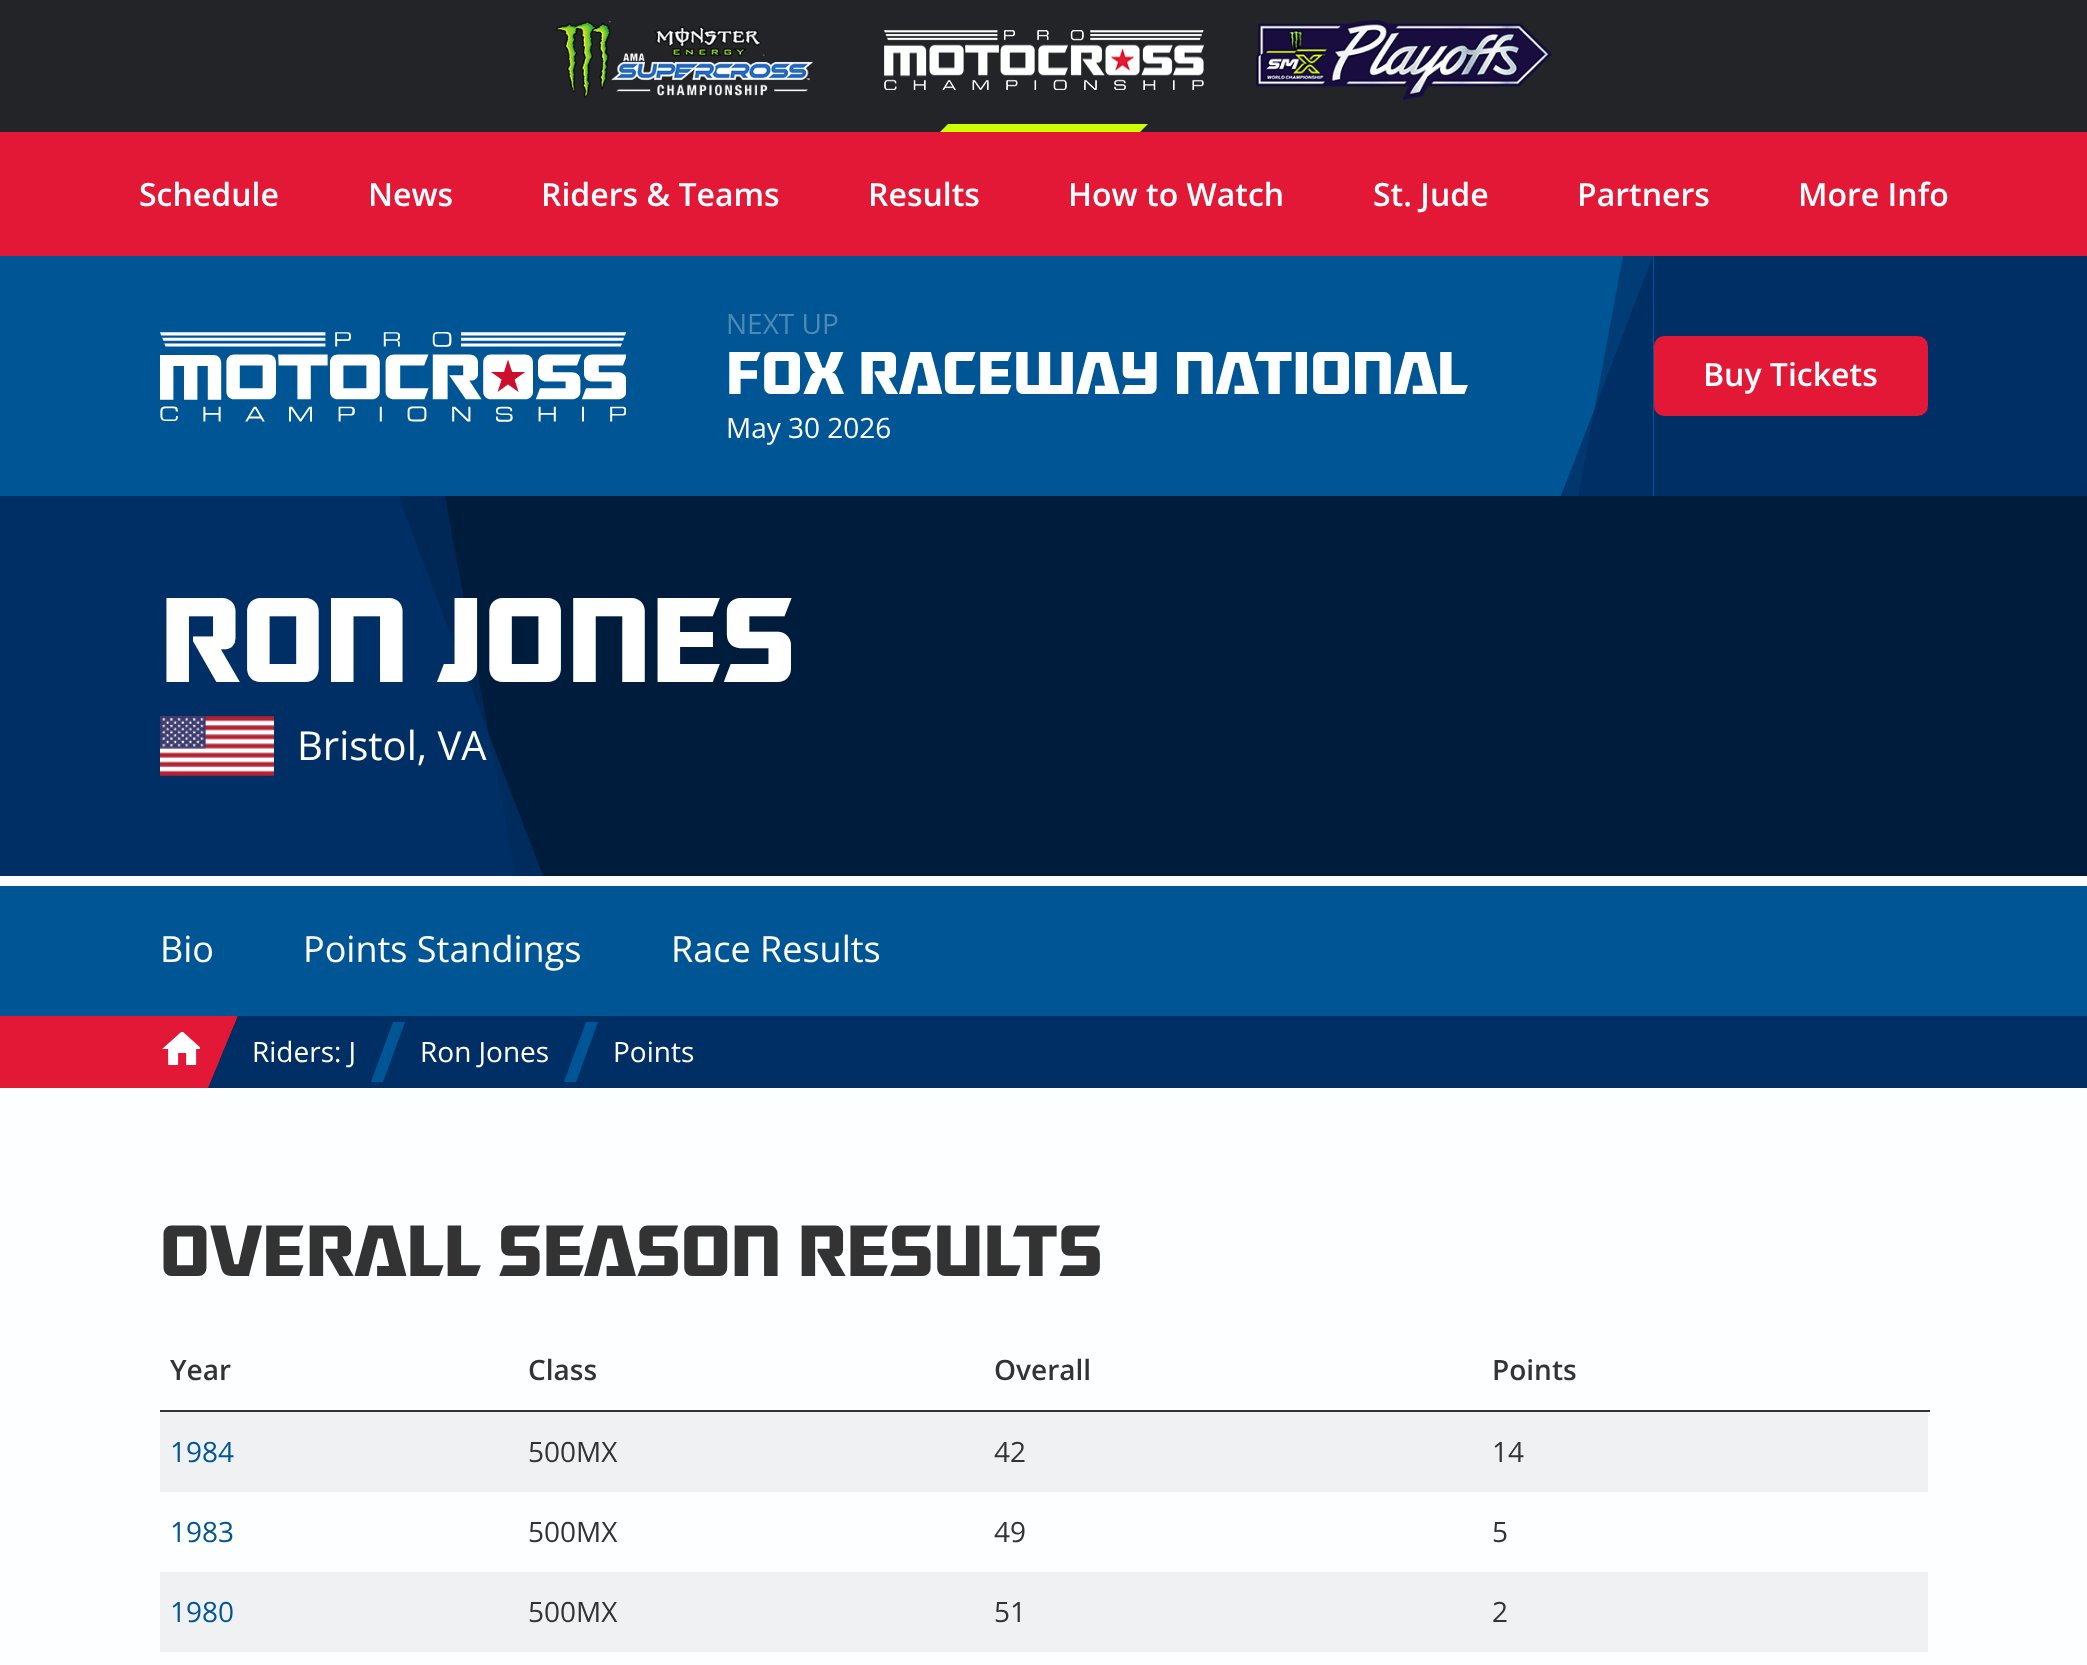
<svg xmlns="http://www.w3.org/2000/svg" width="2087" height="1665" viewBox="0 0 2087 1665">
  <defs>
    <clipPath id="clip1"><rect x="1560" y="256" width="94" height="240"/></clipPath>
  </defs>
  <rect width="100%" height="100%" fill="rgb(253,254,255)"/>
  <rect x="0" y="0" width="2087" height="132" fill="rgb(34,36,40)"/>
  <image x="555" y="21" width="259" height="77" href="pic1.png"/>
  <image x="884" y="30" width="320" height="60" href="pic2.png"/>
  <path d="M948 124H1148L1140 132H940Z" fill="rgb(206,255,0)"/>
  <image x="1256" y="20" width="296" height="80" href="pic3.png"/>
  <rect x="0" y="132" width="2087" height="124" fill="rgb(227,24,55)"/>
  <g font-family="Open Sans" font-size="32" font-weight="600" fill="rgb(255,255,255)">
    <text x="139" y="206">Schedule</text>
    <text x="368" y="206">News</text>
    <text x="541" y="206">Riders &amp; Teams</text>
    <text x="868" y="206">Results</text>
    <text x="1068" y="206">How to Watch</text>
    <text x="1373" y="206">St. Jude</text>
    <text x="1577" y="206">Partners</text>
    <text x="1798" y="206">More Info</text>
  </g>
  <rect x="0" y="256" width="1654" height="240" fill="rgb(0,86,149)"/>
  <image x="160" y="332" width="466" height="90" href="pic4.png"/>
  <text x="726" y="334" font-family="Open Sans" font-size="28" fill="rgb(77,137,181)">NEXT UP</text>
  <text x="726" y="394" font-family="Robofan" font-size="60" font-weight="bold" fill="rgb(255,255,255)">FOX RACEWAY NATIONAL</text>
  <text x="726" y="438" font-family="Open Sans" font-size="28" fill="rgb(255,255,255)">May 30 2026</text>
  <rect x="1654" y="256" width="433" height="240" fill="rgb(0,47,101)"/>
  <g clip-path="url(#clip1)">
    <path d="M1653 498V256L1595 408L1578 498Z" fill="rgb(0,47,101)"/>
    <path d="M1623 256L1578 498H1653V256Z" fill="rgba(0,47,101,0.65)"/>
    <path d="M1595 408L1560 498H1653V256Z" fill="rgba(0,47,101,0.8)"/>
  </g>
  <rect x="1654" y="336" width="274" height="80" rx="10" fill="rgb(227,24,55)"/>
  <text x="1703" y="386" font-family="Open Sans" font-size="32" font-weight="600" fill="rgb(255,255,255)">Buy Tickets</text>
  <rect x="400" y="496" width="1687" height="380" fill="rgb(0,28,60)"/>
  <rect x="0" y="496" width="400" height="380" fill="rgb(0,47,101)"/>
  <path d="M398 876V496L489 735L516 876Z" fill="rgb(0,47,101)"/>
  <path d="M445 496L489 735L516 876H398V496Z" fill="rgba(0,47,101,0.65)"/>
  <path d="M489 735L543 876H398V496Z" fill="rgba(0,47,101,0.8)"/>
  <text x="160" y="682" font-family="Robofan" font-size="120" font-weight="bold" fill="rgb(255,255,255)">RON JONES</text>
  <image x="160" y="716" width="114" height="60" href="pic5.png"/>
  <text x="297" y="760" font-family="Open Sans" font-size="40" fill="rgb(255,255,255)">Bristol, VA</text>
  <rect x="0" y="886" width="2087" height="130" fill="rgb(0,86,149)"/>
  <g font-family="Open Sans" font-size="36" fill="rgb(255,255,255)">
    <text x="160" y="962">Bio</text>
    <text x="303" y="962">Points Standings</text>
    <text x="671" y="962">Race Results</text>
  </g>
  <rect x="220" y="1016" width="1867" height="72" fill="rgb(0,47,101)"/>
  <rect x="0" y="1016" width="220" height="72" fill="rgb(227,24,55)"/>
  <path d="M208 1016H238L208 1088Z" fill="rgb(227,24,55)"/>
  <path d="M238 1016V1088H208Z" fill="rgb(0,47,101)"/>
  <image x="162" y="1032" width="38" height="33" href="pic6.png"/>
  <text x="252" y="1062" font-family="Open Sans" font-size="28" fill="rgb(255,255,255)">Riders: J</text>
  <path d="M393 1022H405L383 1082H371Z" fill="rgb(0,86,149)"/>
  <text x="420" y="1062" font-family="Open Sans" font-size="28" fill="rgb(255,255,255)">Ron Jones</text>
  <path d="M586 1022H598L576 1082H564Z" fill="rgb(0,86,149)"/>
  <text x="613" y="1062" font-family="Open Sans" font-size="28" fill="rgb(255,255,255)">Points</text>
  <text x="160" y="1276" font-family="Robofan" font-size="72" font-weight="bold" fill="rgb(51,51,51)">OVERALL SEASON RESULTS</text>
  <g font-family="Open Sans" font-size="28" font-weight="600" fill="rgb(51,51,51)">
    <text x="170" y="1380">Year</text>
    <text x="528" y="1380">Class</text>
    <text x="994" y="1380">Overall</text>
  </g>
  <rect x="160" y="1410" width="1770" height="2" fill="rgb(51,51,51)"/>
  <text x="1492" y="1380" font-family="Open Sans" font-size="28" font-weight="600" fill="rgb(51,51,51)">Points</text>
  <rect x="160" y="1412" width="1768" height="80" fill="rgb(240,241,242)"/>
  <text x="170" y="1462" font-family="Open Sans" font-size="28" fill="rgb(0,86,149)">1984</text>
  <g font-family="Open Sans" font-size="28" fill="rgb(51,51,51)">
    <text x="528" y="1462">500MX</text>
    <text x="994" y="1462">42</text>
    <text x="1492" y="1462">14</text>
  </g>
  <text x="170" y="1542" font-family="Open Sans" font-size="28" fill="rgb(0,86,149)">1983</text>
  <g font-family="Open Sans" font-size="28" fill="rgb(51,51,51)">
    <text x="528" y="1542">500MX</text>
    <text x="994" y="1542">49</text>
    <text x="1492" y="1542">5</text>
  </g>
  <rect x="160" y="1572" width="1768" height="80" fill="rgb(240,241,242)"/>
  <text x="170" y="1622" font-family="Open Sans" font-size="28" fill="rgb(0,86,149)">1980</text>
  <g font-family="Open Sans" font-size="28" fill="rgb(51,51,51)">
    <text x="528" y="1622">500MX</text>
    <text x="994" y="1622">51</text>
    <text x="1492" y="1622">2</text>
  </g>
</svg>
